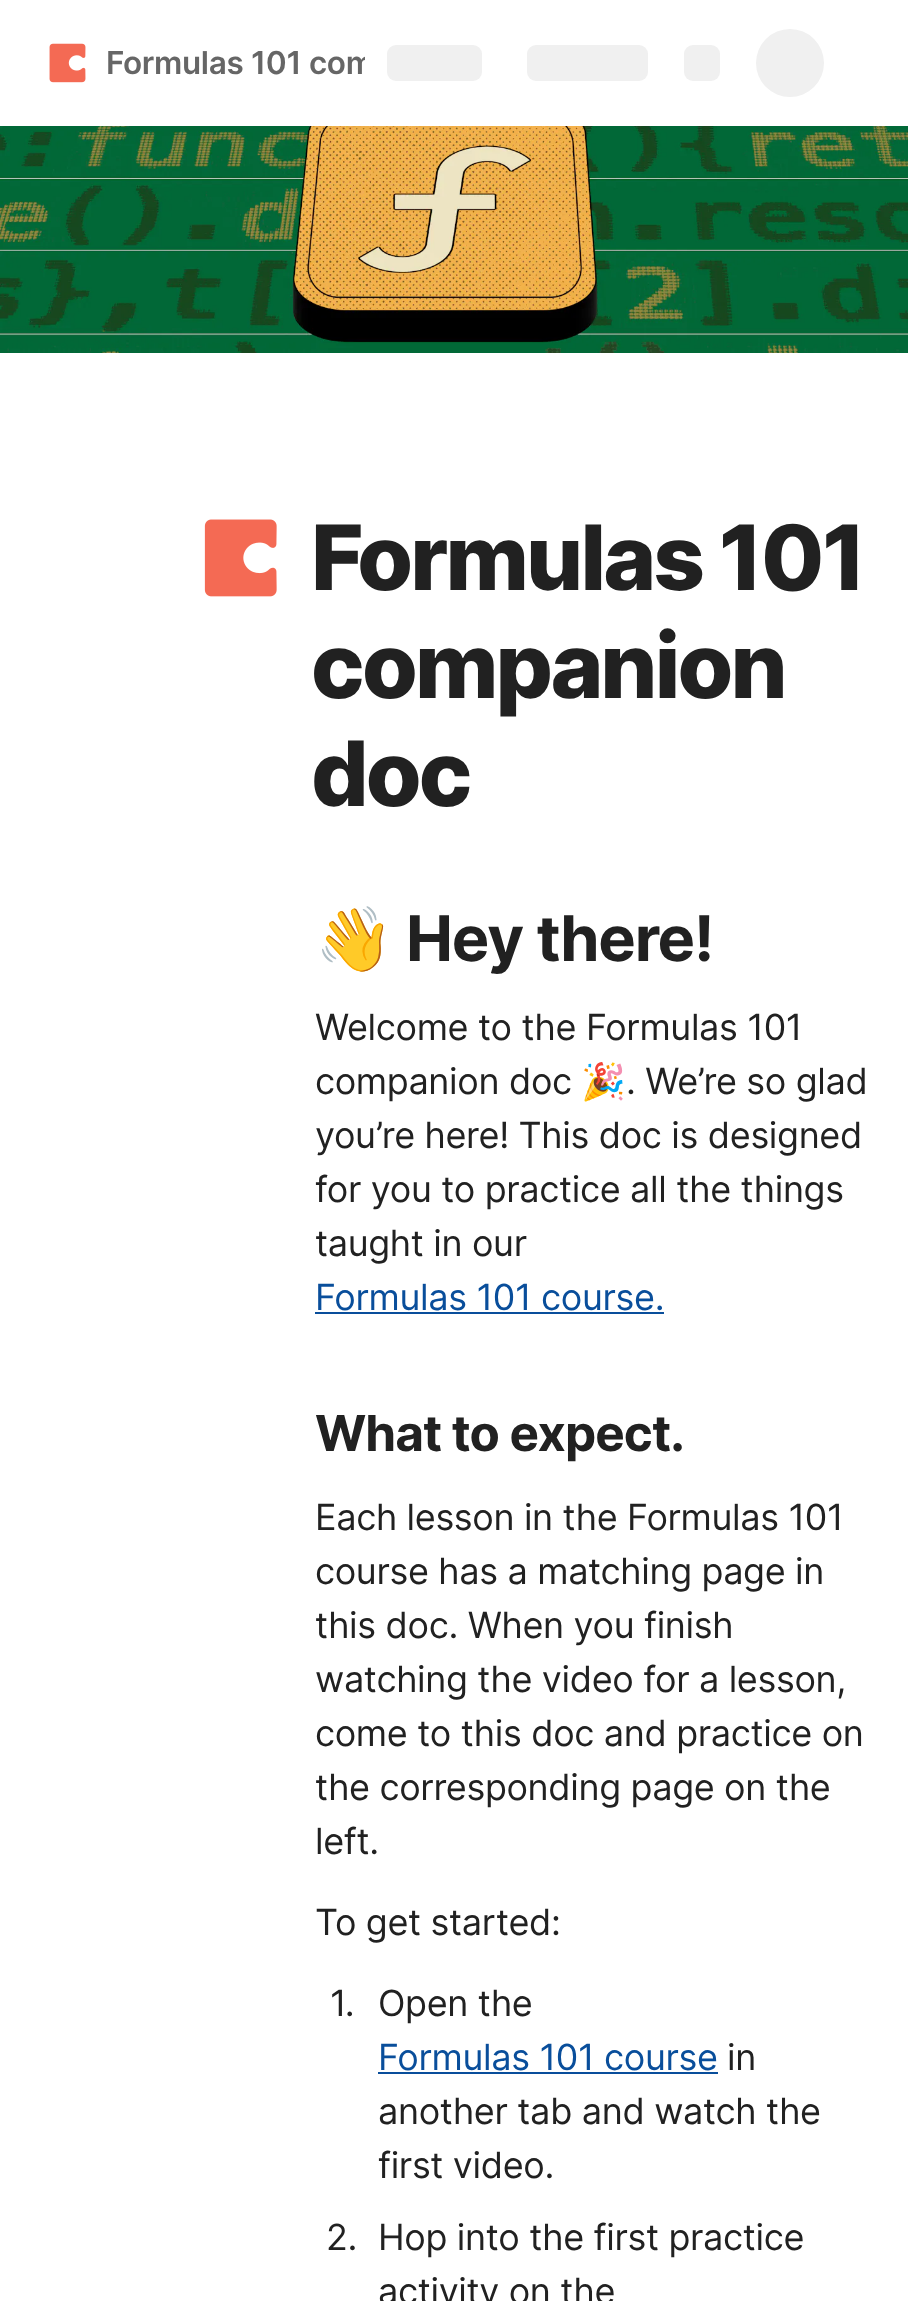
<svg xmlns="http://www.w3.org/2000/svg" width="908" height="2301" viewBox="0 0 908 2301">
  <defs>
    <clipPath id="clip1"><rect x="0" y="27" width="365" height="72"/></clipPath>
  </defs>
  <rect width="100%" height="100%" fill="rgb(255,255,255)"/>
  <image x="49" y="43" width="37" height="40" href="pic1.png"/>
  <g clip-path="url(#clip1)">
    <text x="106" y="74" font-family="Inter" font-size="31.5" font-weight="600" letter-spacing="-0.3" fill="rgb(102,102,102)">Formulas 101 com</text>
  </g>
  <rect x="387" y="45" width="95" height="36" rx="9" fill="rgb(240,240,240)"/>
  <rect x="527" y="45" width="121" height="36" rx="9" fill="rgb(240,240,240)"/>
  <rect x="684" y="45" width="36" height="36" rx="9" fill="rgb(240,240,240)"/>
  <circle cx="790" cy="63" r="34" fill="rgb(240,240,240)"/>
  <image x="0" y="126" width="908" height="227" href="pic2.png"/>
  <image x="204" y="519" width="73" height="78" href="pic3.png"/>
  <g font-family="Inter" font-size="90" font-weight="800" letter-spacing="-2.75" fill="rgb(33,33,33)">
    <text>
      <tspan x="311" y="590">Formulas 101</tspan>
      <tspan x="311" y="698">companion</tspan>
      <tspan x="311" y="806">doc</tspan>
    </text>
  </g>
  <text x="315" y="961" font-family="Noto Color Emoji" font-size="63" font-weight="bold" letter-spacing="-1.25" fill="rgb(33,33,33)">👋</text>
  <text x="406" y="961" font-family="Inter" font-size="63" font-weight="bold" letter-spacing="-1.25" fill="rgb(33,33,33)">Hey there!</text>
  <g font-family="Inter" font-size="36" letter-spacing="-0.35" fill="rgb(33,33,33)">
    <text>
      <tspan x="315" y="1040">Welcome to the Formulas 101</tspan>
      <tspan x="315" y="1094">companion doc</tspan>
    </text>
  </g>
  <text x="581" y="1094" font-family="Noto Color Emoji" font-size="36" letter-spacing="-0.35" fill="rgb(33,33,33)">🎉</text>
  <g font-family="Inter" font-size="36" letter-spacing="-0.35" fill="rgb(33,33,33)">
    <text x="626" y="1094">. We’re so glad</text>
    <text>
      <tspan x="315" y="1148">you’re here! This doc is designed</tspan>
      <tspan x="315" y="1202">for you to practice all the things</tspan>
      <tspan x="315" y="1256">taught in our</tspan>
    </text>
  </g>
  <text x="315" y="1310" font-family="Inter" font-size="36" letter-spacing="-0.35" fill="rgb(9,78,155)">Formulas 101 course.</text>
  <rect x="315" y="1312" width="349" height="2" fill="rgb(9,78,155)"/>
  <text x="315" y="1451" font-family="Inter" font-size="49.5" font-weight="bold" letter-spacing="-1" fill="rgb(33,33,33)">What to expect.</text>
  <g font-family="Inter" font-size="36" letter-spacing="-0.35" fill="rgb(33,33,33)">
    <text>
      <tspan x="315" y="1530">Each lesson in the Formulas 101</tspan>
      <tspan x="315" y="1584">course has a matching page in</tspan>
      <tspan x="315" y="1638">this doc. When you finish</tspan>
      <tspan x="315" y="1692">watching the video for a lesson,</tspan>
      <tspan x="315" y="1746">come to this doc and practice on</tspan>
      <tspan x="315" y="1800">the corresponding page on the</tspan>
      <tspan x="315" y="1854">left.</tspan>
    </text>
    <text x="315" y="1935">To get started:</text>
    <text x="330" y="2016">1.</text>
    <text x="378" y="2016">Open the</text>
  </g>
  <text x="378" y="2070" font-family="Inter" font-size="36" letter-spacing="-0.35" fill="rgb(9,78,155)">Formulas 101 course</text>
  <rect x="378" y="2072" width="340" height="2" fill="rgb(9,78,155)"/>
  <g font-family="Inter" font-size="36" letter-spacing="-0.35" fill="rgb(33,33,33)">
    <text x="727" y="2070">in</text>
    <text>
      <tspan x="378" y="2124">another tab and watch the</tspan>
      <tspan x="378" y="2178">first video.</tspan>
    </text>
    <text x="326" y="2250">2.</text>
    <text>
      <tspan x="378" y="2250">Hop into the first practice</tspan>
      <tspan x="378" y="2304">activity on the</tspan>
    </text>
  </g>
</svg>
